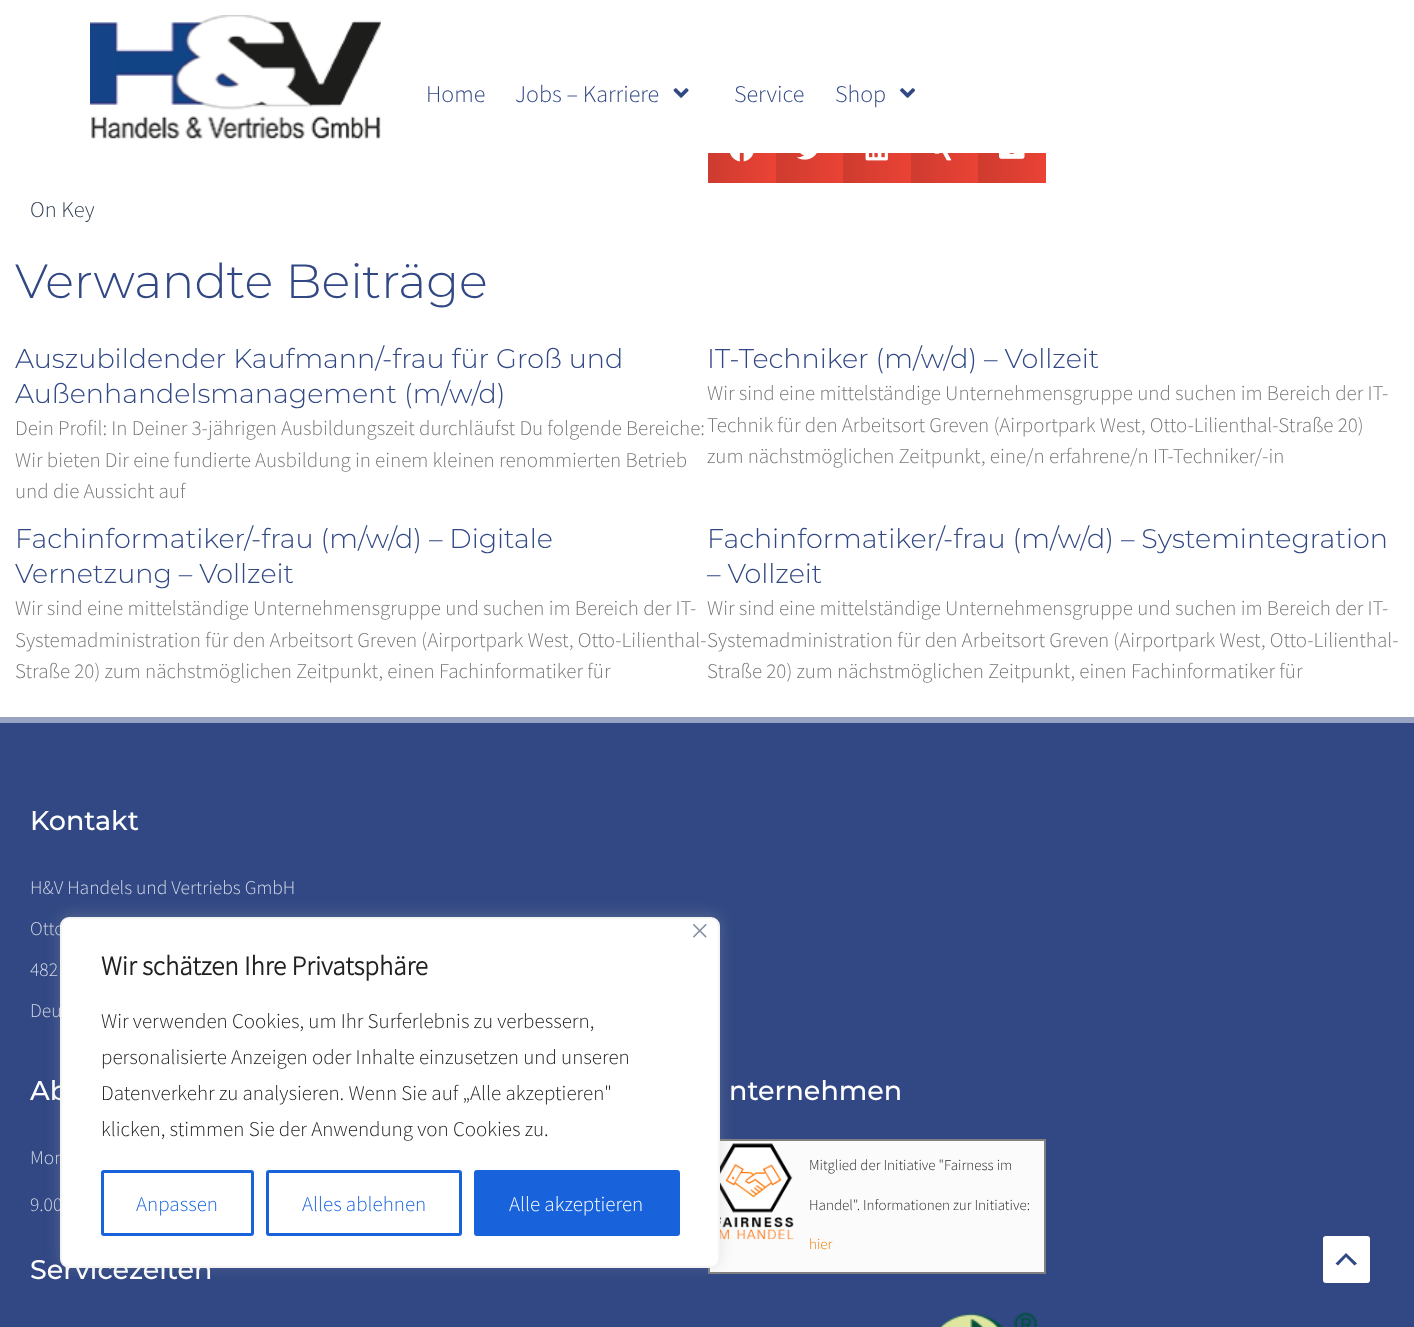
<svg xmlns="http://www.w3.org/2000/svg" width="1414" height="1327" viewBox="0 0 1414 1327">
  <defs>
    <linearGradient id="g1" gradientUnits="userSpaceOnUse" x1="708" y1="149" x2="776" y2="149"><stop offset="0" stop-color="rgb(206,59,47)"/><stop offset="1" stop-color="rgb(234,67,53)"/></linearGradient>
    <linearGradient id="g2" gradientUnits="userSpaceOnUse" x1="776" y1="149" x2="843" y2="149"><stop offset="0" stop-color="rgb(206,59,47)"/><stop offset="1" stop-color="rgb(234,67,53)"/></linearGradient>
    <linearGradient id="g3" gradientUnits="userSpaceOnUse" x1="843" y1="149" x2="911" y2="149"><stop offset="0" stop-color="rgb(206,59,47)"/><stop offset="1" stop-color="rgb(234,67,53)"/></linearGradient>
    <linearGradient id="g4" gradientUnits="userSpaceOnUse" x1="911" y1="149" x2="978" y2="149"><stop offset="0" stop-color="rgb(206,59,47)"/><stop offset="1" stop-color="rgb(234,67,53)"/></linearGradient>
    <linearGradient id="g5" gradientUnits="userSpaceOnUse" x1="978" y1="149" x2="1046" y2="149"><stop offset="0" stop-color="rgb(206,59,47)"/><stop offset="1" stop-color="rgb(234,67,53)"/></linearGradient>
  </defs>
  <rect width="100%" height="100%" fill="rgb(255,255,255)"/>
  <image x="90" y="15" width="291" height="124" href="pic1.png"/>
  <g font-family="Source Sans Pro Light" font-size="24" font-weight="300" fill="rgb(49,72,132)">
    <text x="426" y="102">Home</text>
    <text x="515" y="102">Jobs – Karriere</text>
  </g>
  <image x="673" y="88" width="16" height="10" href="pic2.png"/>
  <g font-family="Source Sans Pro Light" font-size="24" font-weight="300" fill="rgb(49,72,132)">
    <text x="734" y="102">Service</text>
    <text x="835" y="102">Shop</text>
  </g>
  <image x="900" y="88" width="15" height="10" href="pic3.png"/>
  <rect x="708" y="153" width="68" height="30" fill="url(#g1)"/>
  <image x="730" y="153" width="24" height="9" href="pic4.png"/>
  <rect x="776" y="153" width="67" height="30" fill="url(#g2)"/>
  <image x="797" y="153" width="20" height="7" href="pic5.png"/>
  <rect x="843" y="153" width="68" height="30" fill="url(#g3)"/>
  <image x="865" y="153" width="23" height="8" href="pic6.png"/>
  <rect x="911" y="153" width="67" height="30" fill="url(#g4)"/>
  <image x="934" y="153" width="18" height="8" href="pic7.png"/>
  <rect x="978" y="153" width="68" height="30" fill="url(#g5)"/>
  <image x="999" y="153" width="26" height="6" href="pic8.png"/>
  <text x="30" y="217" font-family="Source Sans Pro Light" font-size="22.5" font-weight="300" fill="rgb(51,65,85)">On Key</text>
  <text x="15" y="298" font-family="Montserrat" font-size="48" font-weight="300" fill="rgb(49,72,132)">Verwandte Beiträge</text>
  <g font-family="Montserrat" font-size="27" font-weight="300" fill="rgb(49,72,132)">
    <text>
      <tspan x="15" y="368">Auszubildender Kaufmann/-frau für Groß und</tspan>
      <tspan x="15" y="403">Außenhandelsmanagement (m/w/d)</tspan>
    </text>
  </g>
  <g font-family="Source Sans Pro Light" font-size="21" font-weight="300" fill="rgb(119,119,119)">
    <text>
      <tspan x="15" y="435">Dein Profil: In Deiner 3-jährigen Ausbildungszeit durchläufst Du folgende Bereiche:</tspan>
      <tspan x="15" y="467">Wir bieten Dir eine fundierte Ausbildung in einem kleinen renommierten Betrieb</tspan>
      <tspan x="15" y="498">und die Aussicht auf</tspan>
    </text>
  </g>
  <text x="707" y="368" font-family="Montserrat" font-size="27" font-weight="300" fill="rgb(49,72,132)">IT-Techniker (m/w/d) – Vollzeit</text>
  <g font-family="Source Sans Pro Light" font-size="21" font-weight="300" fill="rgb(119,119,119)">
    <text>
      <tspan x="707" y="400">Wir sind eine mittelständige Unternehmensgruppe und suchen im Bereich der IT-</tspan>
      <tspan x="707" y="432">Technik für den Arbeitsort Greven (Airportpark West, Otto-Lilienthal-Straße 20)</tspan>
      <tspan x="707" y="463">zum nächstmöglichen Zeitpunkt, eine/n erfahrene/n IT-Techniker/-in</tspan>
    </text>
  </g>
  <g font-family="Montserrat" font-size="27" font-weight="300" fill="rgb(49,72,132)">
    <text>
      <tspan x="15" y="548">Fachinformatiker/-frau (m/w/d) – Digitale</tspan>
      <tspan x="15" y="583">Vernetzung – Vollzeit</tspan>
    </text>
  </g>
  <g font-family="Source Sans Pro Light" font-size="21" font-weight="300" fill="rgb(119,119,119)">
    <text>
      <tspan x="15" y="615">Wir sind eine mittelständige Unternehmensgruppe und suchen im Bereich der IT-</tspan>
      <tspan x="15" y="647">Systemadministration für den Arbeitsort Greven (Airportpark West, Otto-Lilienthal-</tspan>
      <tspan x="15" y="678">Straße 20) zum nächstmöglichen Zeitpunkt, einen Fachinformatiker für</tspan>
    </text>
  </g>
  <g font-family="Montserrat" font-size="27" font-weight="300" fill="rgb(49,72,132)">
    <text>
      <tspan x="707" y="548">Fachinformatiker/-frau (m/w/d) – Systemintegration</tspan>
      <tspan x="707" y="583">– Vollzeit</tspan>
    </text>
  </g>
  <g font-family="Source Sans Pro Light" font-size="21" font-weight="300" fill="rgb(119,119,119)">
    <text>
      <tspan x="707" y="615">Wir sind eine mittelständige Unternehmensgruppe und suchen im Bereich der IT-</tspan>
      <tspan x="707" y="647">Systemadministration für den Arbeitsort Greven (Airportpark West, Otto-Lilienthal-</tspan>
      <tspan x="707" y="678">Straße 20) zum nächstmöglichen Zeitpunkt, einen Fachinformatiker für</tspan>
    </text>
  </g>
  <rect x="0" y="723" width="1414" height="604" fill="rgb(49,72,132)"/>
  <rect x="0" y="717" width="1414" height="6" fill="rgb(152,163,193)"/>
  <text x="30" y="830" font-family="Montserrat" font-size="27" font-weight="500" fill="rgb(255,255,255)">Kontakt</text>
  <g font-family="Source Sans Pro Light" font-size="19.5" font-weight="300" fill="rgb(212,217,229)">
    <text x="30" y="894">H&amp;V Handels und Vertriebs GmbH</text>
    <text x="30" y="935">Otto</text>
    <text x="30" y="976">482</text>
    <text x="30" y="1017">Deu</text>
  </g>
  <text x="30" y="1100" font-family="Montserrat" font-size="27" font-weight="500" fill="rgb(255,255,255)">Ab</text>
  <g font-family="Source Sans Pro Light" font-size="19.5" font-weight="300" fill="rgb(212,217,229)">
    <text x="30" y="1164">Mon</text>
    <text x="30" y="1211">9.00</text>
  </g>
  <g font-family="Montserrat" font-size="27" font-weight="500" fill="rgb(255,255,255)">
    <text x="30" y="1279">Servicezeiten</text>
    <text x="729" y="1100">nternehmen</text>
  </g>
  <rect x="709" y="1140" width="336" height="133" fill="rgb(251,251,251)" stroke="rgb(128,128,128)" stroke-width="2"/>
  <image x="720" y="1143" width="74" height="97" href="pic9.png"/>
  <g font-family="Source Sans Pro Light" font-size="15" font-weight="300" fill="rgb(41,41,41)">
    <text x="809" y="1170">Mitglied der Initiative "Fairness im</text>
    <text x="809" y="1210">Handel". Informationen zur Initiative:</text>
  </g>
  <text x="809" y="1249" font-family="Source Sans Pro Light" font-size="15" font-weight="300" fill="rgb(239,123,0)">hier</text>
  <image x="939" y="1312" width="99" height="15" href="pic10.png"/>
  <rect x="60" y="915" width="660" height="351" rx="9" fill="rgba(172,171,171,0.3)" filter="blur(7.5px)"/>
  <rect x="61" y="918" width="658" height="349" rx="8" fill="rgb(255,255,255)" stroke="rgb(244,244,244)" stroke-width="2"/>
  <image x="693" y="924" width="14" height="14" href="pic11.png"/>
  <text x="101" y="975" font-family="Source Sans Pro Light" font-size="27" font-weight="bold" fill="rgb(33,33,33)">Wir schätzen Ihre Privatsphäre</text>
  <g font-family="Source Sans Pro Light" font-size="21" font-weight="300" fill="rgb(33,33,33)">
    <text>
      <tspan x="101" y="1028">Wir verwenden Cookies, um Ihr Surferlebnis zu verbessern,</tspan>
      <tspan x="101" y="1064">personalisierte Anzeigen oder Inhalte einzusetzen und unseren</tspan>
      <tspan x="101" y="1100">Datenverkehr zu analysieren. Wenn Sie auf „Alle akzeptieren"</tspan>
      <tspan x="101" y="1136">klicken, stimmen Sie der Anwendung von Cookies zu.</tspan>
    </text>
  </g>
  <rect x="102.5" y="1171.5" width="150" height="63" rx="1.5" fill="none" stroke="rgb(24,99,220)" stroke-width="3"/>
  <text x="136" y="1211" font-family="Source Sans Pro Light" font-size="21" font-weight="300" fill="rgb(24,99,220)">Anpassen</text>
  <rect x="267.5" y="1171.5" width="193" height="63" rx="1.5" fill="none" stroke="rgb(24,99,220)" stroke-width="3"/>
  <text x="302" y="1211" font-family="Source Sans Pro Light" font-size="21" font-weight="300" fill="rgb(24,99,220)">Alles ablehnen</text>
  <rect x="475.5" y="1171.5" width="203" height="63" rx="1.5" fill="rgb(24,99,220)" stroke="rgb(24,99,220)" stroke-width="3"/>
  <text x="509" y="1211" font-family="Source Sans Pro Light" font-size="21" font-weight="300" fill="rgb(255,255,255)">Alle akzeptieren</text>
  <rect x="1323" y="1236" width="47" height="47" rx="3" fill="rgb(255,255,255)"/>
  <path d="M1357 1263.5L1346 1253L1335.5 1263.5L1338 1265.5L1346 1257L1354.5 1265.5Z" fill="rgb(49,72,132)"/>
</svg>
